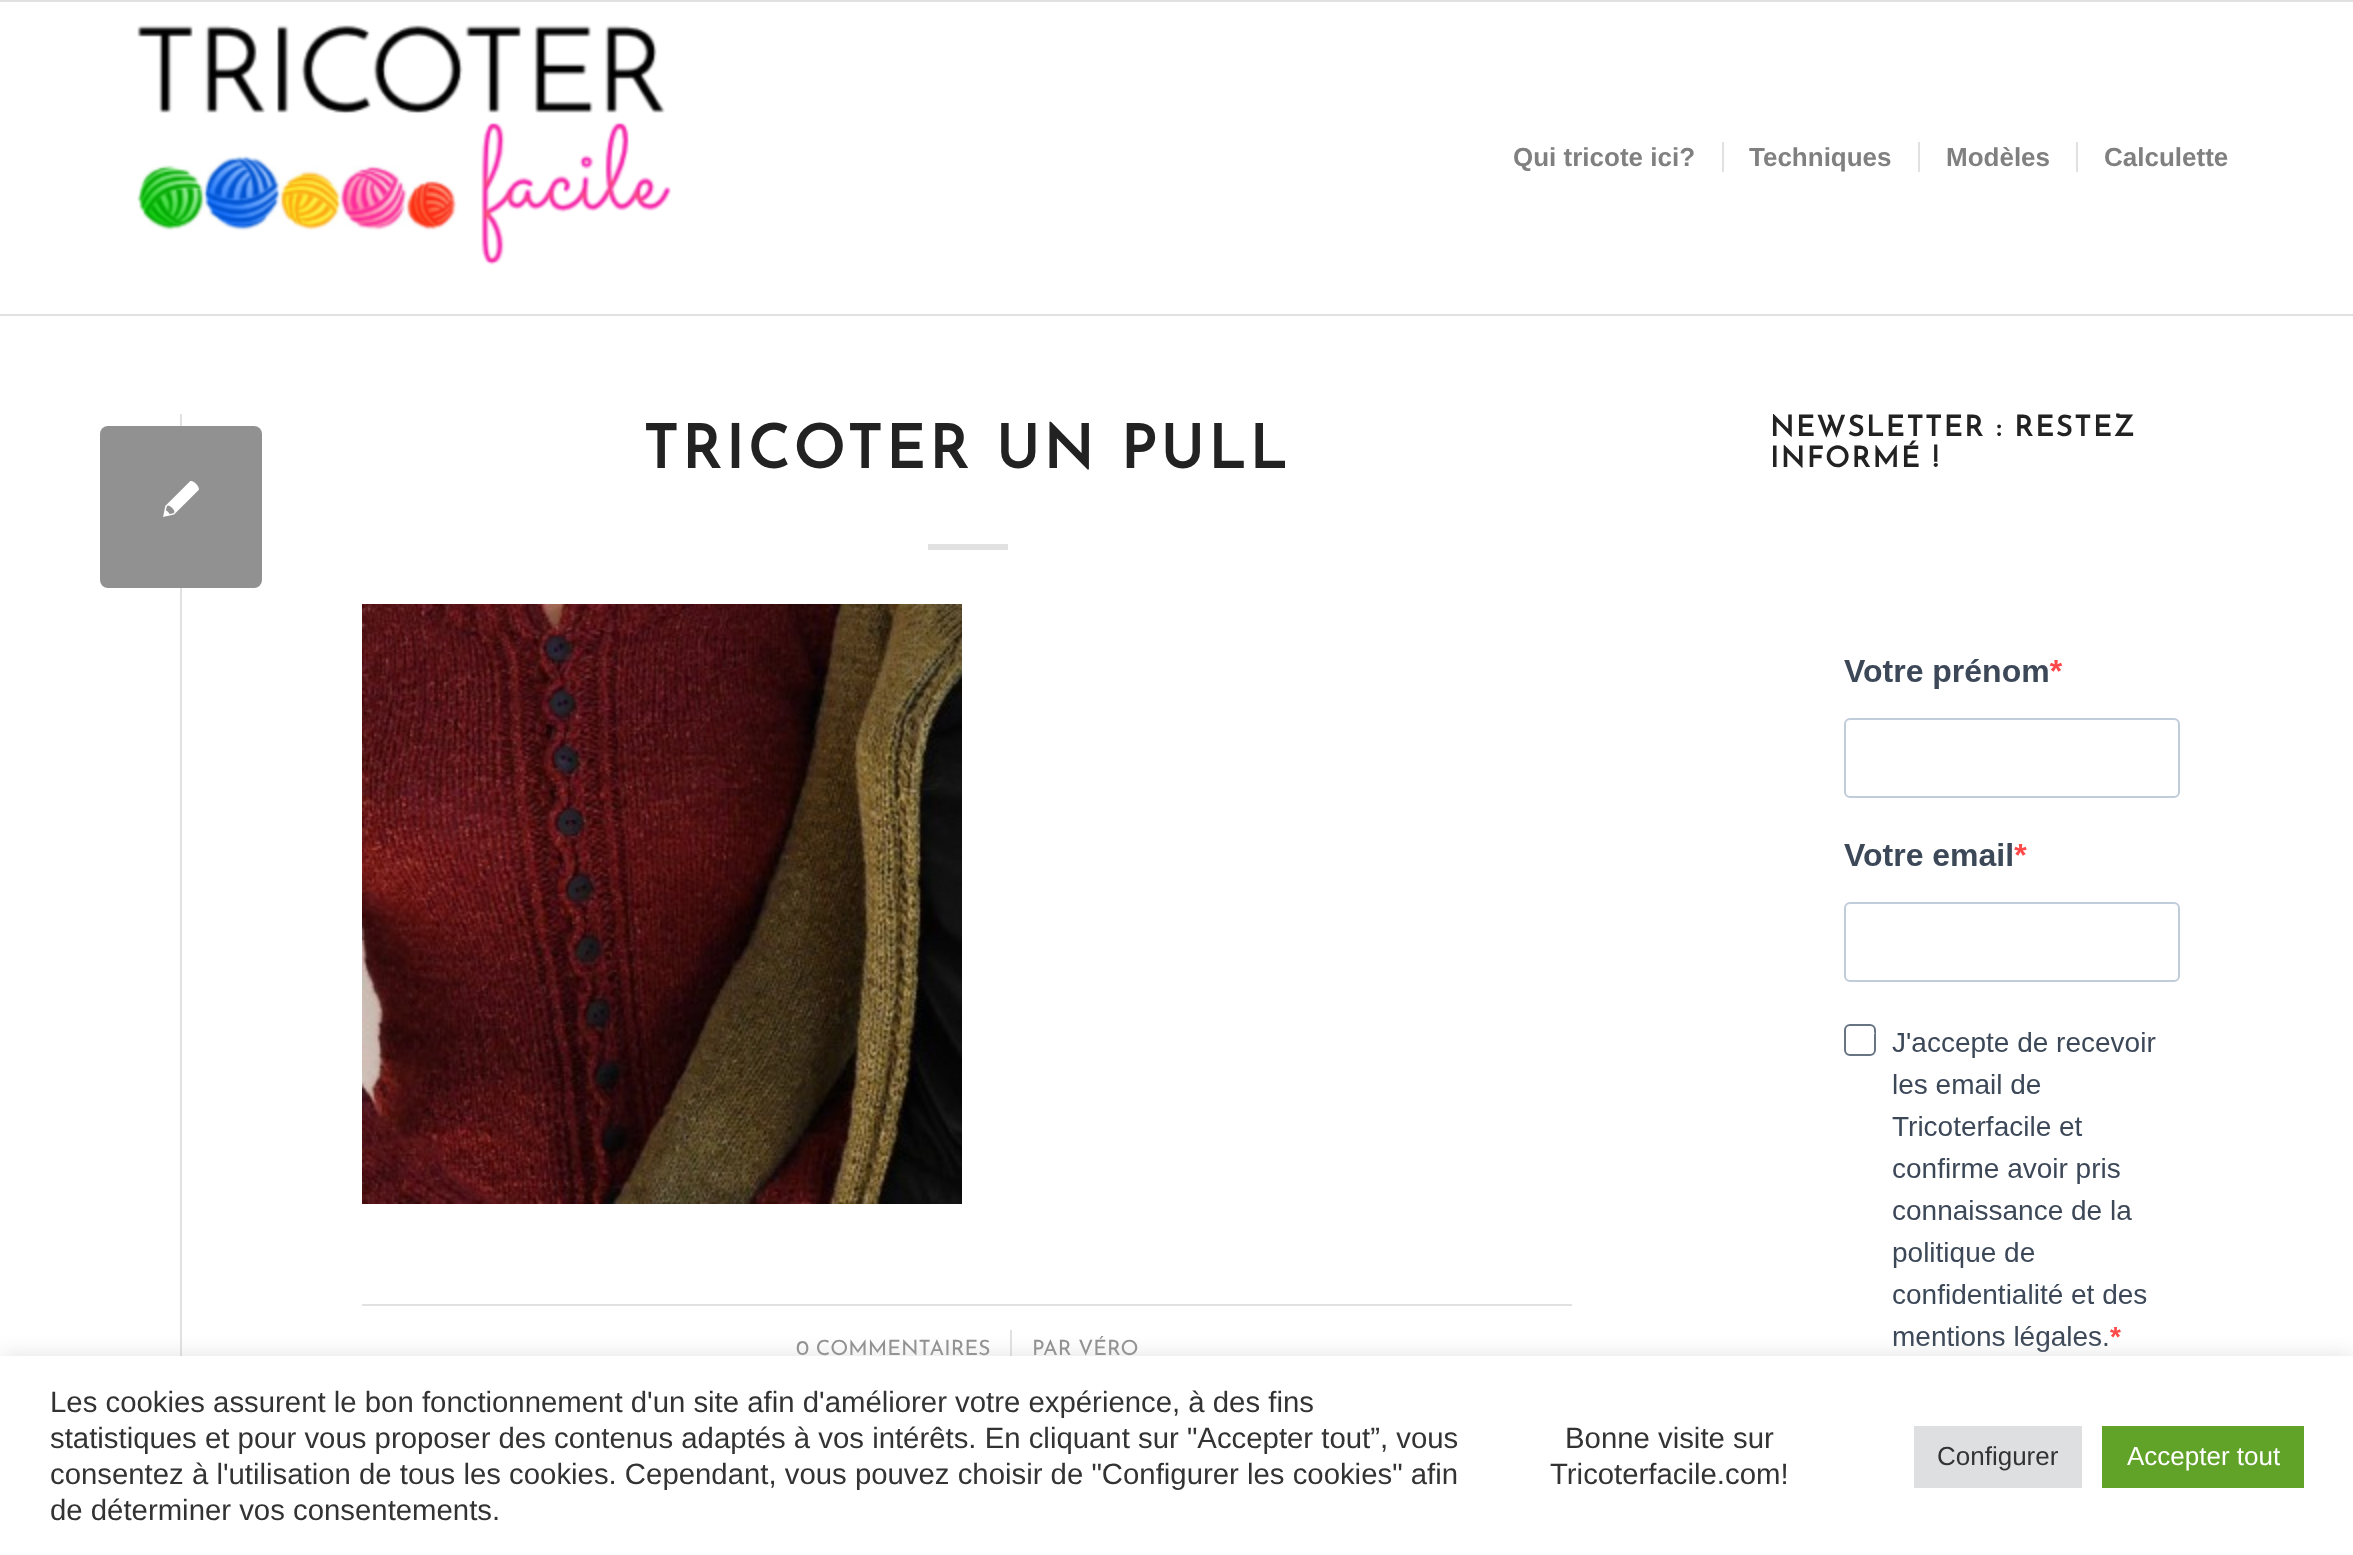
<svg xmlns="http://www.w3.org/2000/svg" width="2353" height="1555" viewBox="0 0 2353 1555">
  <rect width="100%" height="100%" fill="rgb(255,255,255)"/>
  <rect x="0" y="0" width="2353" height="2" fill="rgb(225,225,225)"/>
  <rect x="0" y="314" width="2353" height="2" fill="rgb(225,225,225)"/>
  <image x="137" y="25" width="534" height="240" href="pic1.png"/>
  <g font-family="Liberation Sans" font-size="26" font-weight="bold" fill="rgb(128,128,128)">
    <text x="1513" y="166">Qui tricote ici?</text>
    <text x="1749" y="166">Techniques</text>
  </g>
  <rect x="1722" y="142" width="2" height="30" fill="rgb(225,225,225)"/>
  <text x="1946" y="166" font-family="Liberation Sans" font-size="26" font-weight="bold" fill="rgb(128,128,128)">Modèles</text>
  <rect x="1918" y="142" width="2" height="30" fill="rgb(225,225,225)"/>
  <text x="2104" y="166" font-family="Liberation Sans" font-size="26" font-weight="bold" fill="rgb(128,128,128)">Calculette</text>
  <rect x="2076" y="142" width="2" height="30" fill="rgb(225,225,225)"/>
  <rect x="180" y="414" width="2" height="942" fill="rgb(225,225,225)"/>
  <text x="643" y="468" font-family="Josefin Sans" font-size="60" font-weight="bold" letter-spacing="4" fill="rgb(34,34,34)">TRICOTER UN PULL</text>
  <rect x="928" y="544" width="80" height="6" fill="rgb(225,225,225)"/>
  <image x="362" y="604" width="600" height="600" href="pic2.png"/>
  <rect x="362" y="1304" width="1210" height="2" fill="rgb(225,225,225)"/>
  <text x="796" y="1355" font-family="Josefin Sans" font-size="21" font-weight="100" fill="rgb(145,145,145)">0 COMMENTAIRES</text>
  <rect x="1010" y="1330" width="2" height="26" fill="rgb(225,225,225)"/>
  <text x="1032" y="1355" font-family="Josefin Sans" font-size="21" font-weight="100" fill="rgb(145,145,145)">PAR VÉRO</text>
  <rect x="100" y="426" width="162" height="162" rx="8" fill="rgb(145,145,145)"/>
  <image x="163" y="481" width="36" height="36" href="pic3.png"/>
  <g font-family="Josefin Sans" font-size="28.6" font-weight="bold" letter-spacing="2" fill="rgb(34,34,34)">
    <text>
      <tspan x="1770" y="436">NEWSLETTER : RESTEZ</tspan>
      <tspan x="1770" y="467">INFORMÉ !</tspan>
    </text>
  </g>
  <image x="1844" y="659" width="336" height="697" href="pic4.png"/>
  <rect x="0" y="1354" width="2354" height="200" fill="rgba(172,171,171,0.3)" filter="blur(10px)"/>
  <rect x="0" y="1356" width="2353" height="199" fill="rgb(255,255,255)"/>
  <g font-family="Liberation Sans" font-size="29.35" fill="rgb(51,51,51)">
    <text>
      <tspan x="50" y="1412">Les cookies assurent le bon fonctionnement d'un site afin d'améliorer votre expérience, à des fins</tspan>
      <tspan x="50" y="1448">statistiques et pour vous proposer des contenus adaptés à vos intérêts. En cliquant sur "Accepter tout”, vous</tspan>
      <tspan x="50" y="1484">consentez à l'utilisation de tous les cookies. Cependant, vous pouvez choisir de "Configurer les cookies" afin</tspan>
      <tspan x="50" y="1520">de déterminer vos consentements.</tspan>
    </text>
    <text x="1565" y="1448">Bonne visite sur</text>
    <text x="1550" y="1484">Tricoterfacile.com!</text>
  </g>
  <rect x="1914" y="1426" width="168" height="62" fill="rgb(222,223,224)"/>
  <text x="1937" y="1465" font-family="Liberation Sans" font-size="26" fill="rgb(51,51,51)">Configurer</text>
  <rect x="2102" y="1426" width="202" height="62" fill="rgb(97,162,41)"/>
  <text x="2127" y="1465" font-family="Liberation Sans" font-size="26" fill="rgb(255,255,255)">Accepter tout</text>
</svg>
